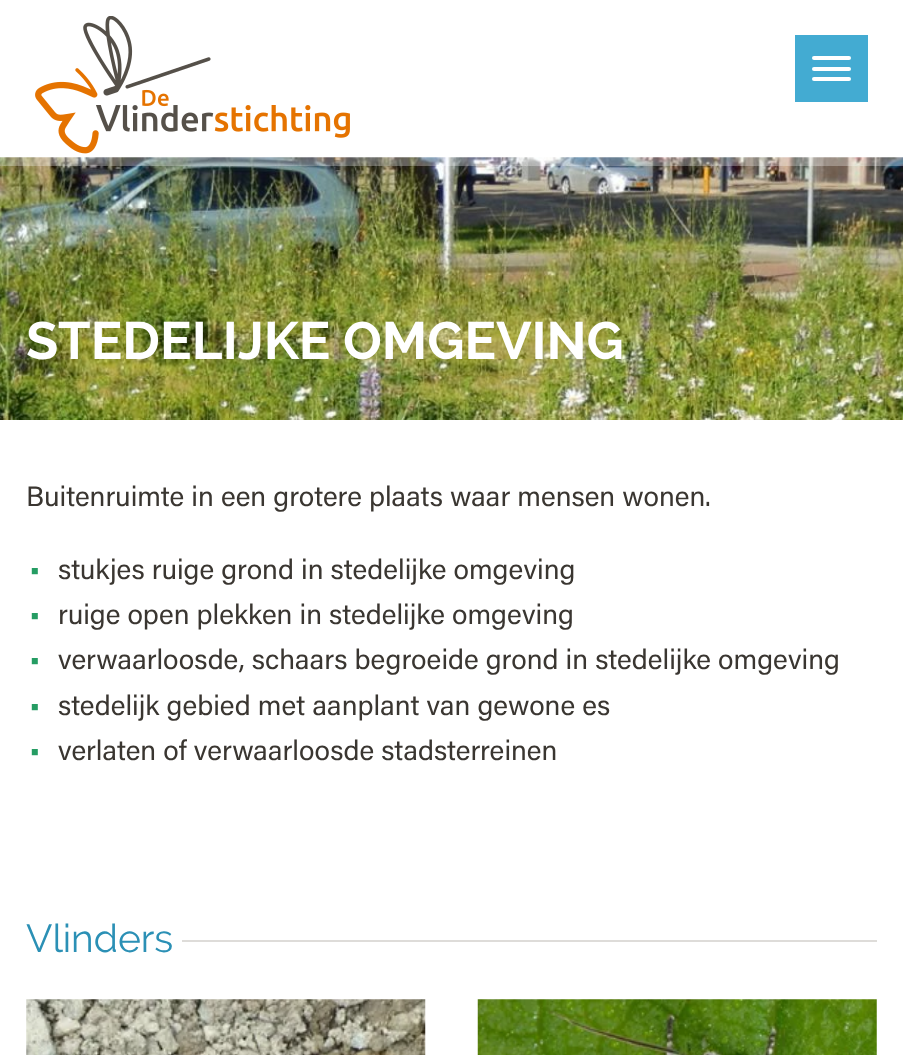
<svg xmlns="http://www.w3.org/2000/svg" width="903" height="1055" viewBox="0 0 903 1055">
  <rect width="100%" height="100%" fill="rgb(255,255,255)"/>
  <image x="35" y="16" width="315" height="138" href="pic1.png"/>
  <rect x="795" y="35" width="73" height="67" fill="rgb(67,171,210)"/>
  <rect x="812" y="56" width="39" height="4" rx="2" fill="rgb(255,255,255)"/>
  <rect x="812" y="67" width="39" height="4" rx="2" fill="rgb(255,255,255)"/>
  <rect x="812" y="77" width="39" height="4" rx="2" fill="rgb(255,255,255)"/>
  <image x="0" y="157" width="903" height="263" href="pic2.png"/>
  <rect x="0" y="158" width="903" height="8" fill="rgba(255,255,255,0.3)"/>
  <text x="26" y="359" font-family="Raleway" font-size="52.5" font-weight="bold" fill="rgb(255,255,255)">STEDELIJKE OMGEVING</text>
  <text x="26" y="506" font-family="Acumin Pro" font-size="28" fill="rgb(58,54,49)">Buitenruimte in een grotere plaats waar mensen wonen.</text>
  <text x="29" y="579" font-family="Acumin Pro" font-size="31" fill="rgb(37,156,99)">•</text>
  <text x="58" y="579" font-family="Acumin Pro" font-size="28" fill="rgb(58,54,49)">stukjes ruige grond in stedelijke omgeving</text>
  <text x="29" y="624" font-family="Acumin Pro" font-size="31" fill="rgb(37,156,99)">•</text>
  <text x="58" y="624" font-family="Acumin Pro" font-size="28" fill="rgb(58,54,49)">ruige open plekken in stedelijke omgeving</text>
  <text x="29" y="669" font-family="Acumin Pro" font-size="31" fill="rgb(37,156,99)">•</text>
  <text x="58" y="669" font-family="Acumin Pro" font-size="28" fill="rgb(58,54,49)">verwaarloosde, schaars begroeide grond in stedelijke omgeving</text>
  <text x="29" y="715" font-family="Acumin Pro" font-size="31" fill="rgb(37,156,99)">•</text>
  <text x="58" y="715" font-family="Acumin Pro" font-size="28" fill="rgb(58,54,49)">stedelijk gebied met aanplant van gewone es</text>
  <text x="29" y="760" font-family="Acumin Pro" font-size="31" fill="rgb(37,156,99)">•</text>
  <text x="58" y="760" font-family="Acumin Pro" font-size="28" fill="rgb(58,54,49)">verlaten of verwaarloosde stadsterreinen</text>
  <text x="26" y="952" font-family="Raleway" font-size="39" fill="rgb(43,144,181)">Vlinders</text>
  <rect x="182" y="940" width="695" height="2" fill="rgb(222,220,217)"/>
  <image x="26" y="999" width="400" height="56" href="pic3.png"/>
  <image x="477" y="999" width="400" height="56" href="pic4.png"/>
</svg>
